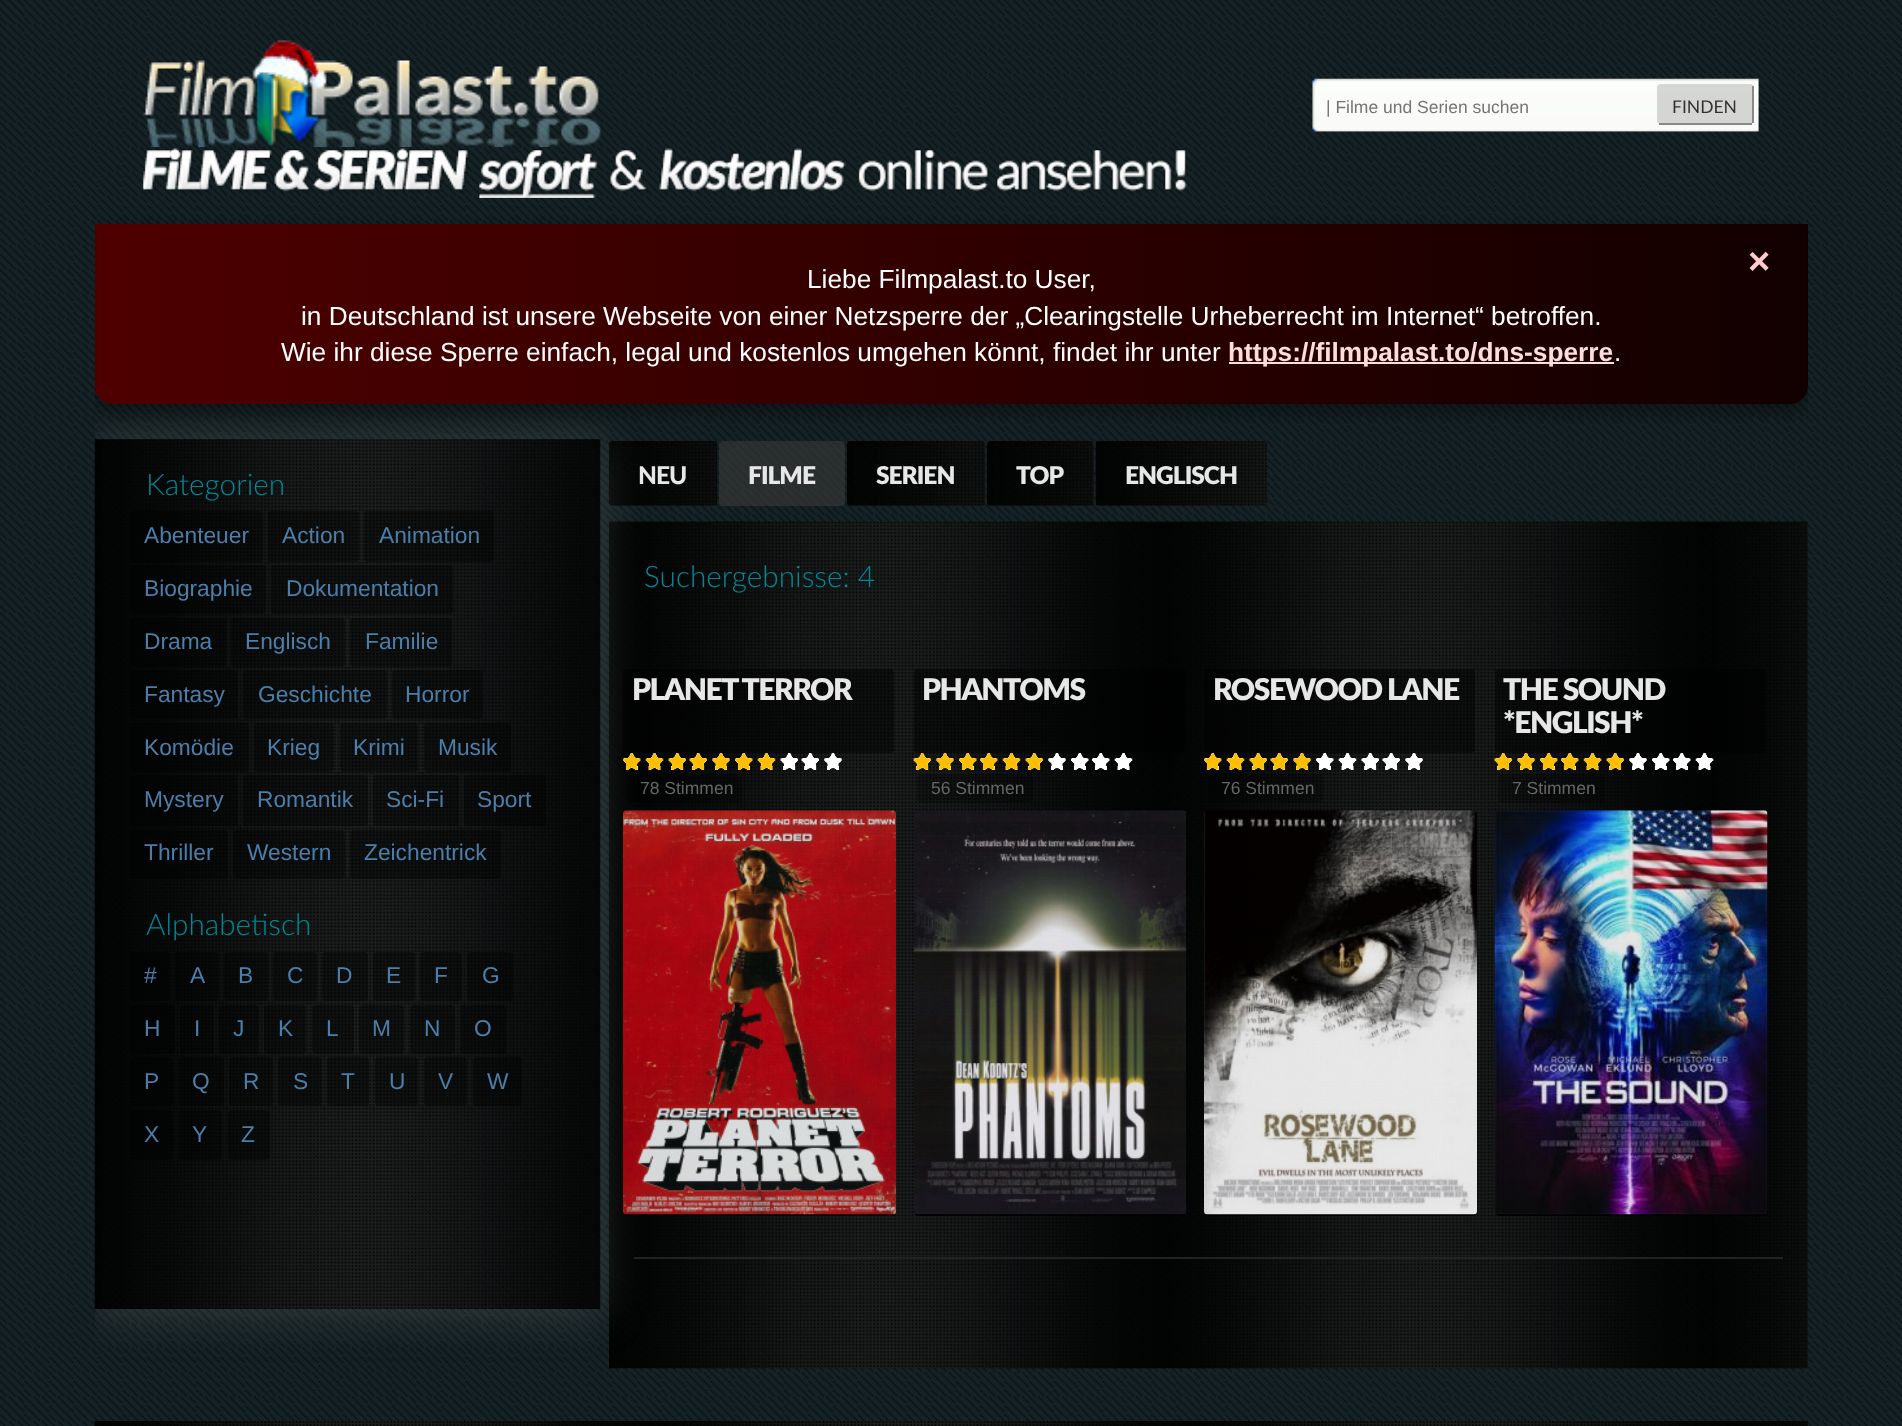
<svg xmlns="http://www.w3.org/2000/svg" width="1902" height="1426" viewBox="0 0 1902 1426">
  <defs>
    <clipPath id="clip1"><rect x="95" y="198" width="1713" height="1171"/></clipPath>
    <clipPath id="clip2"><path d="M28 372H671V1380H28ZM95 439H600V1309H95Z" clip-rule="evenodd"/></clipPath>
    <linearGradient id="g1" gradientUnits="userSpaceOnUse" x1="95" y1="314" x2="1808" y2="314"><stop offset="0" stop-color="rgb(78,0,0)"/><stop offset="1" stop-color="rgb(18,0,0)"/></linearGradient>
  </defs>
  <rect width="100%" height="100%" fill="rgb(255,255,255)"/>
  <image x="0" y="0" width="1902" height="1426" href="pic1.png"/>
  <image x="143" y="40" width="458" height="107" href="pic2.png"/>
  <image x="1312" y="78" width="447" height="54" href="pic3.png"/>
  <text x="1326" y="113" font-family="Liberation Sans" font-size="17.5" fill="rgb(117,117,117)">| Filme und Serien suchen</text>
  <rect x="1657" y="84" width="97" height="40" rx="4" fill="rgba(0,0,0,0.15)"/>
  <rect x="1752" y="86" width="2" height="37" fill="rgb(136,136,136)"/>
  <rect x="1659" y="123" width="93" height="2" fill="rgb(136,136,136)"/>
  <text x="1672" y="113" font-family="Lato" font-size="17.5" fill="rgb(49,49,49)">FINDEN</text>
  <image x="143" y="148" width="1044" height="50" href="pic4.png"/>
  <image x="143" y="148" width="1044" height="50" href="pic5.png"/>
  <image x="609" y="441" width="109" height="65" href="pic7.png"/>
  <image x="609" y="521" width="1199" height="848" href="pic11.png"/>
  <rect x="634" y="1257" width="1149" height="2" fill="rgb(34,34,34)"/>
  <g clip-path="url(#clip1)">
    <g clip-path="url(#clip2)">
      <rect x="95" y="439" width="509" height="874" fill="rgba(123,123,123,0.3)" filter="blur(22px)"/>
    </g>
  </g>
  <image x="94" y="439" width="507" height="870" href="pic6.png"/>
  <rect x="719" y="441" width="126" height="65" rx="4" fill="rgba(55,55,55,0.65)"/>
  <image x="847" y="441" width="138" height="65" href="pic8.png"/>
  <image x="987" y="441" width="107" height="65" href="pic9.png"/>
  <image x="1095" y="441" width="172" height="65" href="pic10.png"/>
  <g clip-path="url(#clip1)">
    <rect x="95" y="231" width="1713" height="180" rx="18" fill="rgba(0,0,0,0.4)" filter="blur(10.5px)"/>
  </g>
  <path d="M95 224H1808V386C1808 396 1800 404 1790 404H113C103 404 95 396 95 386Z" fill="url(#g1)"/>
  <text x="1748" y="274" font-family="Liberation Sans" font-size="38" font-weight="bold" fill="rgb(255,204,204)">×</text>
  <g font-family="Liberation Sans" font-size="26.25" fill="rgb(255,255,255)">
    <text x="807" y="288">Liebe Filmpalast.to User,</text>
    <text x="301" y="325">in Deutschland ist unsere Webseite von einer Netzsperre der „Clearingstelle Urheberrecht im Internet“ betroffen.</text>
    <text x="281" y="361">Wie ihr diese Sperre einfach, legal und kostenlos umgehen könnt, findet ihr unter</text>
  </g>
  <rect x="1229" y="362" width="385" height="2" fill="rgb(255,221,221)"/>
  <text x="1228" y="361" font-family="Liberation Sans" font-size="26.25" font-weight="bold" fill="rgb(255,221,221)">https://filmpalast.to/dns-sperre</text>
  <text x="1614" y="361" font-family="Liberation Sans" font-size="26.25" fill="rgb(255,255,255)">.</text>
  <text x="146" y="495" font-family="Lato" font-size="29.75" font-weight="300" fill="rgb(0,136,150)">Kategorien</text>
  <rect x="130" y="511" width="133" height="51" rx="4" fill="rgba(0,0,0,0.4)"/>
  <text x="144" y="543" font-family="Liberation Sans" font-size="22.75" fill="rgb(75,126,169)">Abenteuer</text>
  <rect x="268" y="511" width="91" height="51" rx="4" fill="rgba(0,0,0,0.4)"/>
  <text x="282" y="543" font-family="Liberation Sans" font-size="22.75" fill="rgb(75,126,169)">Action</text>
  <rect x="364" y="511" width="130" height="51" rx="4" fill="rgba(0,0,0,0.4)"/>
  <text x="379" y="543" font-family="Liberation Sans" font-size="22.75" fill="rgb(75,126,169)">Animation</text>
  <rect x="130" y="565" width="136" height="49" rx="4" fill="rgba(0,0,0,0.4)"/>
  <text x="144" y="596" font-family="Liberation Sans" font-size="22.75" fill="rgb(75,126,169)">Biographie</text>
  <rect x="271" y="565" width="182" height="49" rx="4" fill="rgba(0,0,0,0.4)"/>
  <text x="286" y="596" font-family="Liberation Sans" font-size="22.75" fill="rgb(75,126,169)">Dokumentation</text>
  <rect x="130" y="618" width="96" height="49" rx="4" fill="rgba(0,0,0,0.4)"/>
  <text x="144" y="649" font-family="Liberation Sans" font-size="22.75" fill="rgb(75,126,169)">Drama</text>
  <rect x="231" y="618" width="114" height="49" rx="4" fill="rgba(0,0,0,0.4)"/>
  <text x="245" y="649" font-family="Liberation Sans" font-size="22.75" fill="rgb(75,126,169)">Englisch</text>
  <rect x="350" y="618" width="102" height="49" rx="4" fill="rgba(0,0,0,0.4)"/>
  <text x="365" y="649" font-family="Liberation Sans" font-size="22.75" fill="rgb(75,126,169)">Familie</text>
  <rect x="130" y="670" width="108" height="49" rx="4" fill="rgba(0,0,0,0.4)"/>
  <text x="144" y="702" font-family="Liberation Sans" font-size="22.75" fill="rgb(75,126,169)">Fantasy</text>
  <rect x="243" y="670" width="144" height="49" rx="4" fill="rgba(0,0,0,0.4)"/>
  <text x="258" y="702" font-family="Liberation Sans" font-size="22.75" fill="rgb(75,126,169)">Geschichte</text>
  <rect x="392" y="670" width="91" height="49" rx="4" fill="rgba(0,0,0,0.4)"/>
  <text x="405" y="702" font-family="Liberation Sans" font-size="22.75" fill="rgb(75,126,169)">Horror</text>
  <rect x="130" y="723" width="119" height="49" rx="4" fill="rgba(0,0,0,0.4)"/>
  <text x="144" y="755" font-family="Liberation Sans" font-size="22.75" fill="rgb(75,126,169)">Komödie</text>
  <rect x="254" y="723" width="80" height="49" rx="4" fill="rgba(0,0,0,0.4)"/>
  <text x="267" y="755" font-family="Liberation Sans" font-size="22.75" fill="rgb(75,126,169)">Krieg</text>
  <rect x="340" y="723" width="78" height="49" rx="4" fill="rgba(0,0,0,0.4)"/>
  <text x="353" y="755" font-family="Liberation Sans" font-size="22.75" fill="rgb(75,126,169)">Krimi</text>
  <rect x="424" y="723" width="87" height="49" rx="4" fill="rgba(0,0,0,0.4)"/>
  <text x="438" y="755" font-family="Liberation Sans" font-size="22.75" fill="rgb(75,126,169)">Musik</text>
  <rect x="130" y="775" width="108" height="51" rx="4" fill="rgba(0,0,0,0.4)"/>
  <text x="144" y="807" font-family="Liberation Sans" font-size="22.75" fill="rgb(75,126,169)">Mystery</text>
  <rect x="243" y="775" width="125" height="51" rx="4" fill="rgba(0,0,0,0.4)"/>
  <text x="257" y="807" font-family="Liberation Sans" font-size="22.75" fill="rgb(75,126,169)">Romantik</text>
  <rect x="373" y="775" width="86" height="51" rx="4" fill="rgba(0,0,0,0.4)"/>
  <text x="386" y="807" font-family="Liberation Sans" font-size="22.75" fill="rgb(75,126,169)">Sci-Fi</text>
  <rect x="464" y="775" width="82" height="51" rx="4" fill="rgba(0,0,0,0.4)"/>
  <text x="477" y="807" font-family="Liberation Sans" font-size="22.75" fill="rgb(75,126,169)">Sport</text>
  <rect x="130" y="830" width="98" height="49" rx="4" fill="rgba(0,0,0,0.4)"/>
  <text x="144" y="860" font-family="Liberation Sans" font-size="22.75" fill="rgb(75,126,169)">Thriller</text>
  <rect x="233" y="830" width="112" height="49" rx="4" fill="rgba(0,0,0,0.4)"/>
  <text x="247" y="860" font-family="Liberation Sans" font-size="22.75" fill="rgb(75,126,169)">Western</text>
  <rect x="350" y="830" width="151" height="49" rx="4" fill="rgba(0,0,0,0.4)"/>
  <text x="364" y="860" font-family="Liberation Sans" font-size="22.75" fill="rgb(75,126,169)">Zeichentrick</text>
  <text x="146" y="935" font-family="Lato" font-size="29.75" font-weight="300" fill="rgb(0,136,150)">Alphabetisch</text>
  <rect x="130" y="952" width="40" height="49" rx="4" fill="rgba(0,0,0,0.4)"/>
  <text x="144" y="983" font-family="Liberation Sans" font-size="22.75" fill="rgb(75,126,169)">#</text>
  <rect x="175" y="952" width="44" height="49" rx="4" fill="rgba(0,0,0,0.4)"/>
  <text x="190" y="983" font-family="Liberation Sans" font-size="22.75" fill="rgb(75,126,169)">A</text>
  <rect x="224" y="952" width="44" height="49" rx="4" fill="rgba(0,0,0,0.4)"/>
  <text x="238" y="983" font-family="Liberation Sans" font-size="22.75" fill="rgb(75,126,169)">B</text>
  <rect x="273" y="952" width="44" height="49" rx="4" fill="rgba(0,0,0,0.4)"/>
  <text x="287" y="983" font-family="Liberation Sans" font-size="22.75" fill="rgb(75,126,169)">C</text>
  <rect x="322" y="952" width="46" height="49" rx="4" fill="rgba(0,0,0,0.4)"/>
  <text x="336" y="983" font-family="Liberation Sans" font-size="22.75" fill="rgb(75,126,169)">D</text>
  <rect x="373" y="952" width="42" height="49" rx="4" fill="rgba(0,0,0,0.4)"/>
  <text x="386" y="983" font-family="Liberation Sans" font-size="22.75" fill="rgb(75,126,169)">E</text>
  <rect x="420" y="952" width="42" height="49" rx="4" fill="rgba(0,0,0,0.4)"/>
  <text x="434" y="983" font-family="Liberation Sans" font-size="22.75" fill="rgb(75,126,169)">F</text>
  <rect x="467" y="952" width="46" height="49" rx="4" fill="rgba(0,0,0,0.4)"/>
  <text x="482" y="983" font-family="Liberation Sans" font-size="22.75" fill="rgb(75,126,169)">G</text>
  <rect x="130" y="1005" width="45" height="49" rx="4" fill="rgba(0,0,0,0.4)"/>
  <text x="144" y="1036" font-family="Liberation Sans" font-size="22.75" fill="rgb(75,126,169)">H</text>
  <rect x="180" y="1005" width="34" height="49" rx="4" fill="rgba(0,0,0,0.4)"/>
  <text x="194" y="1036" font-family="Liberation Sans" font-size="22.75" fill="rgb(75,126,169)">I</text>
  <rect x="219" y="1005" width="40" height="49" rx="4" fill="rgba(0,0,0,0.4)"/>
  <text x="233" y="1036" font-family="Liberation Sans" font-size="22.75" fill="rgb(75,126,169)">J</text>
  <rect x="264" y="1005" width="42" height="49" rx="4" fill="rgba(0,0,0,0.4)"/>
  <text x="278" y="1036" font-family="Liberation Sans" font-size="22.75" fill="rgb(75,126,169)">K</text>
  <rect x="312" y="1005" width="42" height="49" rx="4" fill="rgba(0,0,0,0.4)"/>
  <text x="326" y="1036" font-family="Liberation Sans" font-size="22.75" fill="rgb(75,126,169)">L</text>
  <rect x="359" y="1005" width="45" height="49" rx="4" fill="rgba(0,0,0,0.4)"/>
  <text x="372" y="1036" font-family="Liberation Sans" font-size="22.75" fill="rgb(75,126,169)">M</text>
  <rect x="410" y="1005" width="45" height="49" rx="4" fill="rgba(0,0,0,0.4)"/>
  <text x="424" y="1036" font-family="Liberation Sans" font-size="22.75" fill="rgb(75,126,169)">N</text>
  <rect x="460" y="1005" width="46" height="49" rx="4" fill="rgba(0,0,0,0.4)"/>
  <text x="474" y="1036" font-family="Liberation Sans" font-size="22.75" fill="rgb(75,126,169)">O</text>
  <rect x="130" y="1057" width="43" height="49" rx="4" fill="rgba(0,0,0,0.4)"/>
  <text x="144" y="1089" font-family="Liberation Sans" font-size="22.75" fill="rgb(75,126,169)">P</text>
  <rect x="179" y="1057" width="45" height="49" rx="4" fill="rgba(0,0,0,0.4)"/>
  <text x="192" y="1089" font-family="Liberation Sans" font-size="22.75" fill="rgb(75,126,169)">Q</text>
  <rect x="229" y="1057" width="44" height="49" rx="4" fill="rgba(0,0,0,0.4)"/>
  <text x="243" y="1089" font-family="Liberation Sans" font-size="22.75" fill="rgb(75,126,169)">R</text>
  <rect x="278" y="1057" width="44" height="49" rx="4" fill="rgba(0,0,0,0.4)"/>
  <text x="293" y="1089" font-family="Liberation Sans" font-size="22.75" fill="rgb(75,126,169)">S</text>
  <rect x="327" y="1057" width="42" height="49" rx="4" fill="rgba(0,0,0,0.4)"/>
  <text x="341" y="1089" font-family="Liberation Sans" font-size="22.75" fill="rgb(75,126,169)">T</text>
  <rect x="375" y="1057" width="43" height="49" rx="4" fill="rgba(0,0,0,0.4)"/>
  <text x="389" y="1089" font-family="Liberation Sans" font-size="22.75" fill="rgb(75,126,169)">U</text>
  <rect x="424" y="1057" width="43" height="49" rx="4" fill="rgba(0,0,0,0.4)"/>
  <text x="438" y="1089" font-family="Liberation Sans" font-size="22.75" fill="rgb(75,126,169)">V</text>
  <rect x="473" y="1057" width="49" height="49" rx="4" fill="rgba(0,0,0,0.4)"/>
  <text x="487" y="1089" font-family="Liberation Sans" font-size="22.75" fill="rgb(75,126,169)">W</text>
  <rect x="130" y="1110" width="43" height="50" rx="4" fill="rgba(0,0,0,0.4)"/>
  <text x="144" y="1142" font-family="Liberation Sans" font-size="22.75" fill="rgb(75,126,169)">X</text>
  <rect x="179" y="1110" width="43" height="50" rx="4" fill="rgba(0,0,0,0.4)"/>
  <text x="192" y="1142" font-family="Liberation Sans" font-size="22.75" fill="rgb(75,126,169)">Y</text>
  <rect x="228" y="1110" width="42" height="50" rx="4" fill="rgba(0,0,0,0.4)"/>
  <text x="241" y="1142" font-family="Liberation Sans" font-size="22.75" fill="rgb(75,126,169)">Z</text>
  <text x="638" y="484" font-family="Lato" font-size="24.5" font-weight="900" letter-spacing="-1" fill="rgb(231,231,231)">NEU</text>
  <g font-family="'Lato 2'" font-size="24.5" font-weight="900" letter-spacing="-1" fill="rgb(231,231,231)">
    <text x="748" y="484">FILME</text>
    <text x="876" y="484">SERIEN</text>
    <text x="1016" y="484">TOP</text>
    <text x="1125" y="484">ENGLISCH</text>
  </g>
  <text x="644" y="587" font-family="Lato" font-size="29.75" font-weight="300" fill="rgb(0,136,150)">Suchergebnisse: 4</text>
  <rect x="623" y="669" width="271" height="84" rx="4" fill="rgba(0,0,0,0.5)"/>
  <text x="632" y="700" font-family="'Lato 2'" font-size="30" font-weight="900" letter-spacing="-1.5" fill="rgb(231,231,231)">PLANET TERROR</text>
  <image x="623" y="753" width="18" height="17" href="pic12.png"/>
  <image x="645" y="753" width="19" height="17" href="pic13.png"/>
  <image x="668" y="753" width="18" height="17" href="pic14.png"/>
  <image x="689" y="753" width="18" height="17" href="pic15.png"/>
  <image x="712" y="753" width="18" height="17" href="pic16.png"/>
  <image x="735" y="753" width="18" height="17" href="pic17.png"/>
  <image x="757" y="753" width="19" height="17" href="pic18.png"/>
  <image x="780" y="753" width="18" height="17" href="pic19.png"/>
  <image x="801" y="753" width="18" height="17" href="pic20.png"/>
  <image x="824" y="753" width="18" height="17" href="pic21.png"/>
  <rect x="627" y="774" width="115" height="29" rx="5" fill="rgba(0,0,0,0.27)"/>
  <text x="640" y="794" font-family="Liberation Sans" font-size="17.5" fill="rgb(102,102,102)">78 Stimmen</text>
  <path d="M623 1211C623 1214 624 1216 627 1216H892C895 1216 896 1214 896 1211C896 1213 894 1214 892 1214H626C625 1214 623 1213 623 1211Z" fill="rgba(0,0,0,0.9)"/>
  <image x="623" y="810" width="273" height="405" href="pic22.png"/>
  <rect x="914" y="669" width="271" height="84" rx="4" fill="rgba(0,0,0,0.5)"/>
  <text x="922" y="700" font-family="'Lato 2'" font-size="30" font-weight="900" letter-spacing="-1.5" fill="rgb(231,231,231)">PHANTOMS</text>
  <image x="913" y="753" width="18" height="17" href="pic23.png"/>
  <image x="936" y="753" width="18" height="17" href="pic24.png"/>
  <image x="959" y="753" width="18" height="17" href="pic25.png"/>
  <image x="980" y="753" width="18" height="17" href="pic26.png"/>
  <image x="1002" y="753" width="19" height="17" href="pic27.png"/>
  <image x="1025" y="753" width="18" height="17" href="pic28.png"/>
  <image x="1048" y="753" width="18" height="17" href="pic29.png"/>
  <image x="1071" y="753" width="18" height="17" href="pic30.png"/>
  <image x="1092" y="753" width="18" height="17" href="pic31.png"/>
  <image x="1114" y="753" width="19" height="17" href="pic32.png"/>
  <rect x="917" y="774" width="116" height="29" rx="5" fill="rgba(0,0,0,0.27)"/>
  <text x="931" y="794" font-family="Liberation Sans" font-size="17.5" fill="rgb(102,102,102)">56 Stimmen</text>
  <path d="M914 1213C915 1215 916 1216 918 1216H1183C1185 1216 1187 1214 1187 1212V816L1186 814V1211C1186 1213 1185 1214 1183 1214H917C916 1214 915 1214 914 1213Z" fill="rgba(0,0,0,0.9)"/>
  <image x="913" y="810" width="274" height="405" href="pic33.png"/>
  <rect x="1204" y="669" width="271" height="84" rx="4" fill="rgba(0,0,0,0.5)"/>
  <text x="1213" y="700" font-family="'Lato 2'" font-size="30" font-weight="900" letter-spacing="-1.5" fill="rgb(231,231,231)">ROSEWOOD LANE</text>
  <image x="1204" y="753" width="18" height="17" href="pic34.png"/>
  <image x="1226" y="753" width="19" height="17" href="pic35.png"/>
  <image x="1249" y="753" width="18" height="17" href="pic36.png"/>
  <image x="1270" y="753" width="18" height="17" href="pic37.png"/>
  <image x="1293" y="753" width="18" height="17" href="pic38.png"/>
  <image x="1316" y="753" width="18" height="17" href="pic39.png"/>
  <image x="1338" y="753" width="19" height="17" href="pic40.png"/>
  <image x="1361" y="753" width="18" height="17" href="pic41.png"/>
  <image x="1382" y="753" width="18" height="17" href="pic42.png"/>
  <image x="1405" y="753" width="18" height="17" href="pic43.png"/>
  <rect x="1208" y="774" width="115" height="29" rx="5" fill="rgba(0,0,0,0.27)"/>
  <text x="1221" y="794" font-family="Liberation Sans" font-size="17.5" fill="rgb(102,102,102)">76 Stimmen</text>
  <path d="M1204 1211C1204 1214 1205 1216 1208 1216H1473C1476 1216 1477 1214 1477 1211C1477 1213 1475 1214 1474 1214H1208C1206 1214 1204 1213 1204 1211Z" fill="rgba(0,0,0,0.9)"/>
  <image x="1204" y="810" width="273" height="405" href="pic44.png"/>
  <rect x="1495" y="669" width="271" height="84" rx="4" fill="rgba(0,0,0,0.5)"/>
  <g font-family="'Lato 2'" font-size="30" font-weight="900" letter-spacing="-1.5" fill="rgb(231,231,231)">
    <text>
      <tspan x="1503" y="700">THE SOUND</tspan>
      <tspan x="1503" y="733">*ENGLISH*</tspan>
    </text>
  </g>
  <image x="1494" y="753" width="18" height="17" href="pic45.png"/>
  <image x="1517" y="753" width="18" height="17" href="pic46.png"/>
  <image x="1540" y="753" width="18" height="17" href="pic47.png"/>
  <image x="1561" y="753" width="18" height="17" href="pic48.png"/>
  <image x="1583" y="753" width="19" height="17" href="pic49.png"/>
  <image x="1606" y="753" width="18" height="17" href="pic50.png"/>
  <image x="1629" y="753" width="18" height="17" href="pic51.png"/>
  <image x="1652" y="753" width="18" height="17" href="pic52.png"/>
  <image x="1673" y="753" width="18" height="17" href="pic53.png"/>
  <image x="1695" y="753" width="19" height="17" href="pic54.png"/>
  <rect x="1498" y="774" width="107" height="29" rx="5" fill="rgba(0,0,0,0.27)"/>
  <text x="1512" y="794" font-family="Liberation Sans" font-size="17.5" fill="rgb(102,102,102)">7 Stimmen</text>
  <path d="M1495 1213C1496 1215 1497 1216 1499 1216H1764C1766 1216 1768 1214 1768 1212V816V814V1211C1768 1213 1766 1214 1764 1214H1498C1497 1214 1496 1214 1495 1213Z" fill="rgba(0,0,0,0.9)"/>
  <image x="1494" y="810" width="274" height="405" href="pic55.png"/>
  <image x="94" y="1421" width="1714" height="5" href="pic56.png"/>
</svg>
